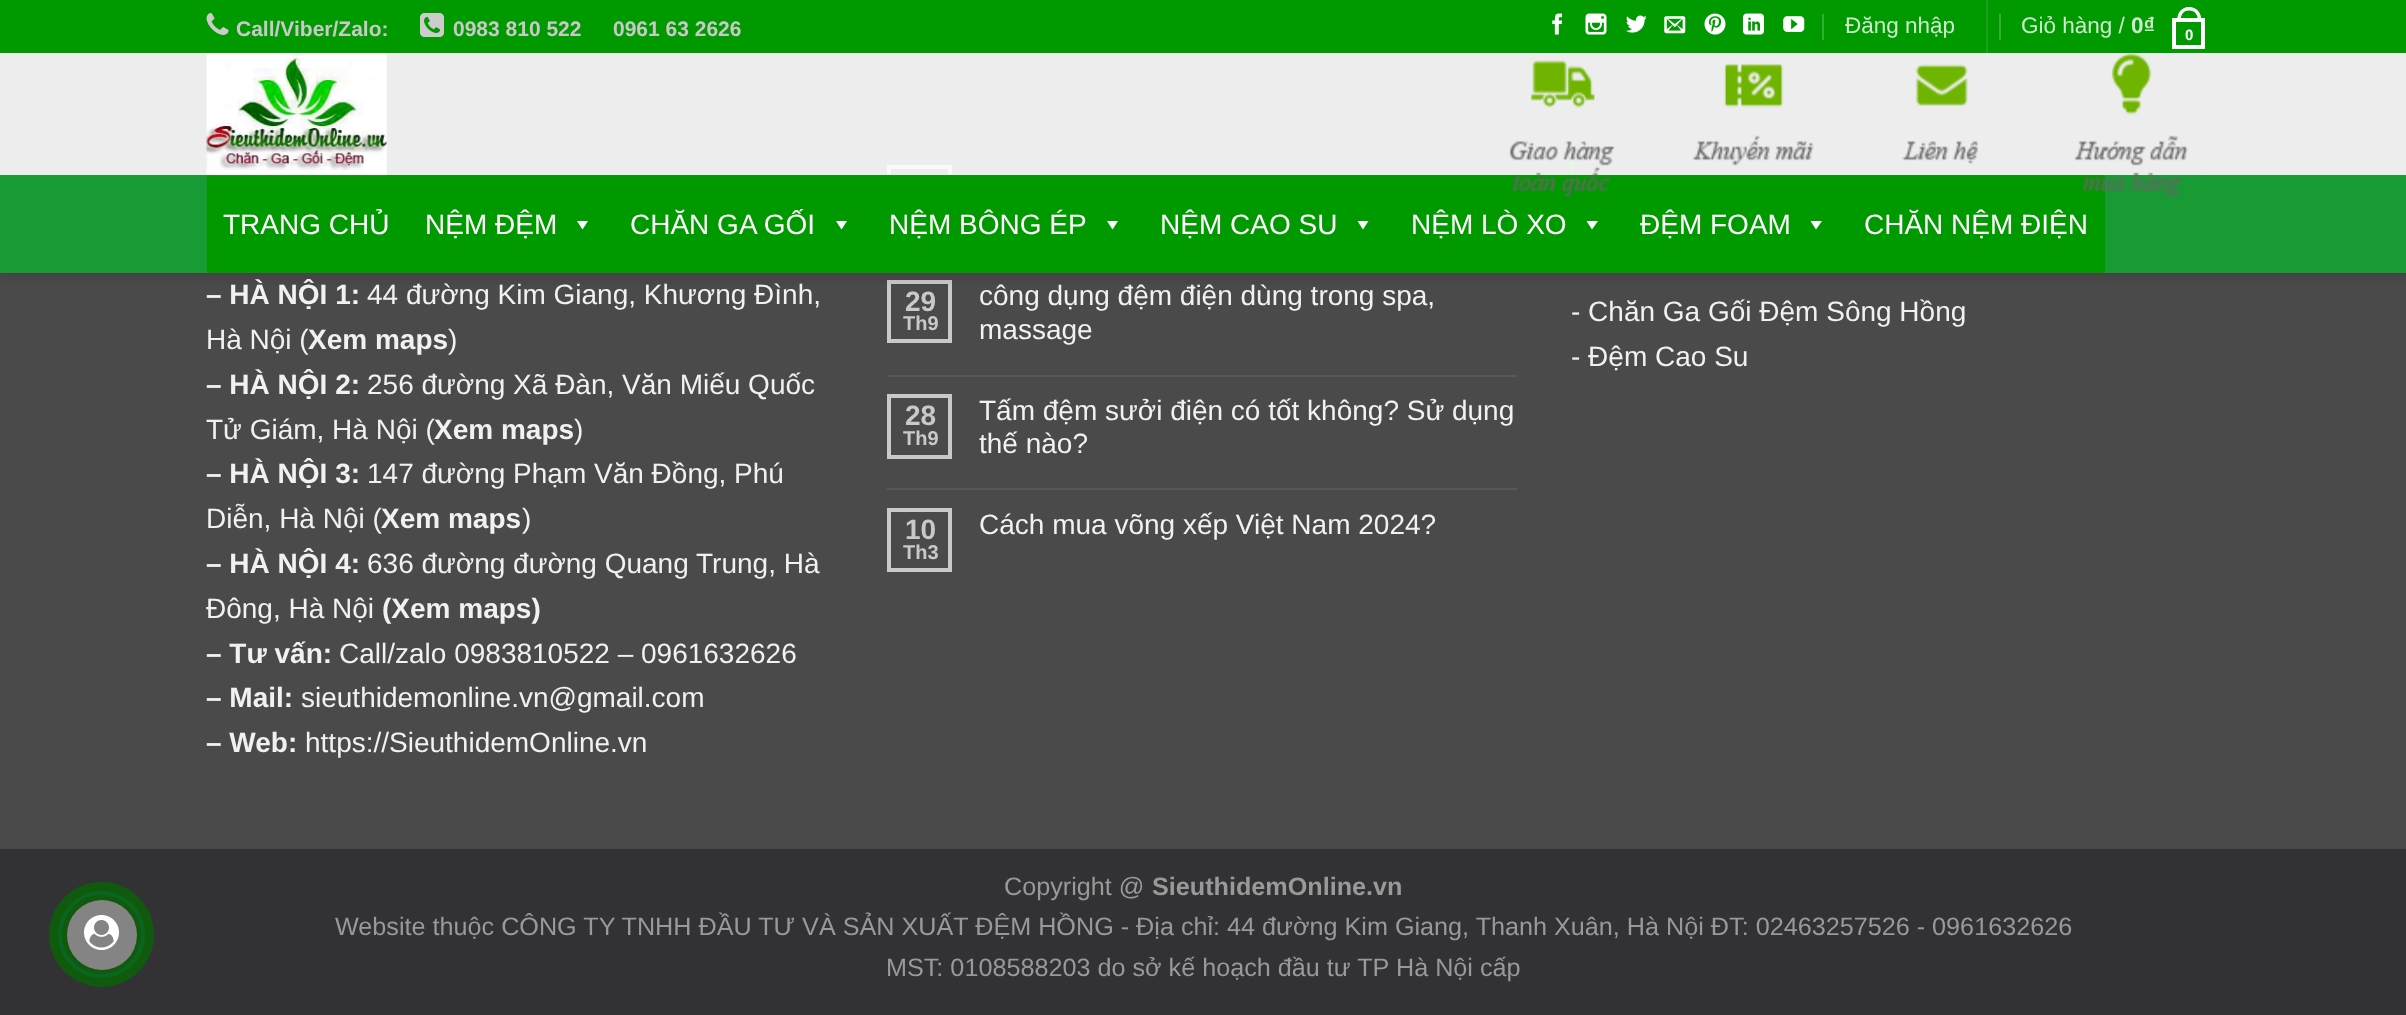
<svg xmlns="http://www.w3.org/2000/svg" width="2406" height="1015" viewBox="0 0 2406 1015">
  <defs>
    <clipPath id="clip1"><rect x="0" y="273" width="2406" height="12"/></clipPath>
  </defs>
  <rect width="100%" height="100%" fill="rgb(74,74,74)"/>
  <rect x="0" y="849" width="2406" height="166" fill="rgb(50,50,53)"/>
  <circle cx="101.5" cy="934.5" r="41.5" fill="none" stroke="rgb(25,94,119)" stroke-width="4"/>
  <circle cx="101.5" cy="934.5" r="52.5" fill="rgba(6,104,0,0.75)"/>
  <circle cx="102" cy="935" r="35" fill="rgb(132,132,132)"/>
  <image x="84" y="915" width="35" height="35" href="pic1.png"/>
  <rect x="889" y="167" width="61" height="60" fill="none" stroke="rgb(201,201,201)" stroke-width="4"/>
  <rect x="889" y="282" width="61" height="59" fill="none" stroke="rgb(201,201,201)" stroke-width="4"/>
  <rect x="1570" y="147" width="4" height="28" fill="rgb(0,153,0)"/>
  <g clip-path="url(#clip1)">
    <rect x="2" y="2" width="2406" height="273" fill="rgba(0,0,0,0.15)" filter="blur(9px)"/>
  </g>
  <rect x="0" y="0" width="2406" height="53" fill="rgb(0,153,0)"/>
  <image x="206" y="13" width="23" height="22" href="pic2.png"/>
  <text x="236" y="36" font-family="Liberation Sans" font-size="21" font-weight="bold" fill="rgb(201,201,201)">Call/Viber/Zalo:</text>
  <image x="420" y="13" width="24" height="24" href="pic3.png"/>
  <g font-family="Liberation Sans" font-size="21" font-weight="bold" fill="rgb(201,201,201)">
    <text x="453" y="36">0983 810 522</text>
    <text x="613" y="36">0961 63 2626</text>
  </g>
  <image x="1552" y="13" width="11" height="22" href="pic4.png"/>
  <image x="1585" y="13" width="22" height="22" href="pic5.png"/>
  <image x="1626" y="15" width="21" height="18" href="pic6.png"/>
  <image x="1664" y="16" width="22" height="18" href="pic7.png"/>
  <image x="1704" y="13" width="22" height="22" href="pic8.png"/>
  <image x="1743" y="13" width="21" height="22" href="pic9.png"/>
  <image x="1783" y="16" width="22" height="16" href="pic10.png"/>
  <rect x="1822" y="14" width="2" height="26" fill="rgb(51,173,51)"/>
  <text x="1845" y="33" font-family="Liberation Sans" font-size="22.5" fill="rgb(204,235,204)">Đăng nhập</text>
  <rect x="1986" y="0" width="2" height="53" fill="rgb(26,163,26)"/>
  <rect x="1999" y="14" width="2" height="26" fill="rgb(51,173,51)"/>
  <text x="2021" y="33" font-family="Liberation Sans" font-size="22.5" fill="rgb(204,235,204)">Giỏ hàng /</text>
  <text x="2131" y="33" font-family="Liberation Sans" font-size="22.5" font-weight="bold" fill="rgb(204,235,204)">0₫</text>
  <rect x="2174" y="20" width="29" height="27" fill="none" stroke="rgb(255,255,255)" stroke-width="4"/>
  <path d="M2189 7C2197.5 7 2201.5 13.5 2201.5 21H2177C2177 13.5 2181 7 2189 7ZM2189 10.5C2195.5 10.5 2198 15.5 2198 21H2180.5C2180.5 15.5 2183 10.5 2189 10.5Z" fill="rgb(255,255,255)" fill-rule="evenodd"/>
  <text x="2185" y="40" font-family="Liberation Sans" font-size="15" font-weight="bold" fill="rgb(255,255,255)">0</text>
  <rect x="0" y="53" width="2406" height="122" fill="rgba(255,255,255,0.9)"/>
  <rect x="0" y="175" width="2406" height="98" fill="rgb(24,155,53)"/>
  <rect x="207" y="175" width="1898" height="98" fill="rgb(0,153,0)"/>
  <image x="205" y="53" width="182" height="123" href="pic11.png"/>
  <image x="1509" y="60" width="106" height="137" href="pic12.png"/>
  <image x="1692" y="63" width="122" height="103" href="pic13.png"/>
  <image x="1902" y="64" width="76" height="100" href="pic14.png"/>
  <image x="2074" y="53" width="114" height="144" href="pic15.png"/>
  <rect x="207" y="175" width="1995" height="2" fill="rgba(119,119,119,0.1)"/>
  <g font-family="Liberation Sans" font-size="28" fill="rgb(255,255,255)">
    <text x="223" y="234">TRANG CHỦ</text>
    <text x="425" y="234">NỆM ĐỆM</text>
  </g>
  <path d="M588 221L582.5 229.5L577 221Z" fill="rgb(255,255,255)"/>
  <text x="630" y="234" font-family="Liberation Sans" font-size="28" fill="rgb(255,255,255)">CHĂN GA GỐI</text>
  <path d="M847 221L841.5 229.5L836 221Z" fill="rgb(255,255,255)"/>
  <text x="889" y="234" font-family="Liberation Sans" font-size="28" fill="rgb(255,255,255)">NỆM BÔNG ÉP</text>
  <path d="M1118 221L1112.5 229.5L1107 221Z" fill="rgb(255,255,255)"/>
  <text x="1160" y="234" font-family="Liberation Sans" font-size="28" fill="rgb(255,255,255)">NỆM CAO SU</text>
  <path d="M1368.5 221L1363 229.5L1357.5 221Z" fill="rgb(255,255,255)"/>
  <text x="1411" y="234" font-family="Liberation Sans" font-size="28" fill="rgb(255,255,255)">NỆM LÒ XO</text>
  <path d="M1598 221L1592 229.5L1586.5 221Z" fill="rgb(255,255,255)"/>
  <text x="1640" y="234" font-family="Liberation Sans" font-size="28" fill="rgb(255,255,255)">ĐỆM FOAM</text>
  <path d="M1822 221L1816 229.5L1810.5 221Z" fill="rgb(255,255,255)"/>
  <text x="1864" y="234" font-family="Liberation Sans" font-size="28" fill="rgb(255,255,255)">CHĂN NỆM ĐIỆN</text>
  <text x="206" y="304" font-family="Liberation Sans" font-size="28" font-weight="bold" fill="rgb(241,241,241)">– HÀ NỘI 1:</text>
  <g font-family="Liberation Sans" font-size="28" fill="rgb(241,241,241)">
    <text x="367" y="304">44 đường Kim Giang, Khương Đình,</text>
    <text x="206" y="349">Hà Nội (</text>
  </g>
  <text x="308" y="349" font-family="Liberation Sans" font-size="28" font-weight="bold" fill="rgb(241,241,241)">Xem maps</text>
  <text x="448" y="349" font-family="Liberation Sans" font-size="28" fill="rgb(241,241,241)">)</text>
  <text x="206" y="394" font-family="Liberation Sans" font-size="28" font-weight="bold" fill="rgb(241,241,241)">– HÀ NỘI 2:</text>
  <g font-family="Liberation Sans" font-size="28" fill="rgb(241,241,241)">
    <text x="367" y="394">256 đường Xã Đàn, Văn Miếu Quốc</text>
    <text x="206" y="439">Tử Giám, Hà Nội (</text>
  </g>
  <text x="434" y="439" font-family="Liberation Sans" font-size="28" font-weight="bold" fill="rgb(241,241,241)">Xem maps</text>
  <text x="574" y="439" font-family="Liberation Sans" font-size="28" fill="rgb(241,241,241)">)</text>
  <text x="206" y="483" font-family="Liberation Sans" font-size="28" font-weight="bold" fill="rgb(241,241,241)">– HÀ NỘI 3:</text>
  <g font-family="Liberation Sans" font-size="28" fill="rgb(241,241,241)">
    <text x="367" y="483">147 đường Phạm Văn Đồng, Phú</text>
    <text x="206" y="528">Diễn, Hà Nội (</text>
  </g>
  <text x="381" y="528" font-family="Liberation Sans" font-size="28" font-weight="bold" fill="rgb(241,241,241)">Xem maps</text>
  <text x="522" y="528" font-family="Liberation Sans" font-size="28" fill="rgb(241,241,241)">)</text>
  <text x="206" y="573" font-family="Liberation Sans" font-size="28" font-weight="bold" fill="rgb(241,241,241)">– HÀ NỘI 4:</text>
  <g font-family="Liberation Sans" font-size="28" fill="rgb(241,241,241)">
    <text x="367" y="573">636 đường đường Quang Trung, Hà</text>
    <text x="206" y="618">Đông, Hà Nội</text>
  </g>
  <g font-family="Liberation Sans" font-size="28" font-weight="bold" fill="rgb(241,241,241)">
    <text x="382" y="618">(Xem maps)</text>
    <text x="206" y="663">– Tư vấn:</text>
  </g>
  <text x="339" y="663" font-family="Liberation Sans" font-size="28" fill="rgb(241,241,241)">Call/zalo 0983810522 – 0961632626</text>
  <text x="206" y="707" font-family="Liberation Sans" font-size="28" font-weight="bold" fill="rgb(241,241,241)">– Mail:</text>
  <text x="301" y="707" font-family="Liberation Sans" font-size="28" fill="rgb(241,241,241)">sieuthidemonline.vn@gmail.com</text>
  <text x="206" y="752" font-family="Liberation Sans" font-size="28" font-weight="bold" fill="rgb(241,241,241)">– Web:</text>
  <text x="305" y="752" font-family="Liberation Sans" font-size="28" fill="rgb(241,241,241)">https://SieuthidemOnline.vn</text>
  <text x="905" y="311" font-family="Liberation Sans" font-size="28" font-weight="bold" fill="rgb(201,201,201)">29</text>
  <text x="903" y="330" font-family="Liberation Sans" font-size="20" font-weight="bold" fill="rgb(201,201,201)">Th9</text>
  <g font-family="Liberation Sans" font-size="28" fill="rgb(241,241,241)">
    <text>
      <tspan x="979" y="305">công dụng đệm điện dùng trong spa,</tspan>
      <tspan x="979" y="339">massage</tspan>
    </text>
  </g>
  <rect x="887" y="375" width="630" height="2" fill="rgb(88,88,88)"/>
  <rect x="889" y="396" width="61" height="61" fill="none" stroke="rgb(201,201,201)" stroke-width="4"/>
  <text x="905" y="425" font-family="Liberation Sans" font-size="28" font-weight="bold" fill="rgb(201,201,201)">28</text>
  <text x="903" y="445" font-family="Liberation Sans" font-size="20" font-weight="bold" fill="rgb(201,201,201)">Th9</text>
  <g font-family="Liberation Sans" font-size="28" fill="rgb(241,241,241)">
    <text>
      <tspan x="979" y="420">Tấm đệm sưởi điện có tốt không? Sử dụng</tspan>
      <tspan x="979" y="453">thế nào?</tspan>
    </text>
  </g>
  <rect x="887" y="488" width="630" height="2" fill="rgb(88,88,88)"/>
  <rect x="889" y="510" width="61" height="60" fill="none" stroke="rgb(201,201,201)" stroke-width="4"/>
  <text x="905" y="539" font-family="Liberation Sans" font-size="28" font-weight="bold" fill="rgb(201,201,201)">10</text>
  <text x="903" y="559" font-family="Liberation Sans" font-size="20" font-weight="bold" fill="rgb(201,201,201)">Th3</text>
  <g font-family="Liberation Sans" font-size="28" fill="rgb(241,241,241)">
    <text x="979" y="534">Cách mua võng xếp Việt Nam 2024?</text>
    <text>
      <tspan x="1571" y="321">- Chăn Ga Gối Đệm Sông Hồng</tspan>
      <tspan x="1571" y="366">- Đệm Cao Su</tspan>
    </text>
  </g>
  <text x="1004" y="895" font-family="Liberation Sans" font-size="25.2" fill="rgb(153,153,154)">Copyright @</text>
  <text x="1152" y="895" font-family="Liberation Sans" font-size="25.2" font-weight="bold" fill="rgb(153,153,154)">SieuthidemOnline.vn</text>
  <g font-family="Liberation Sans" font-size="25.2" fill="rgb(153,153,154)">
    <text x="335" y="935">Website thuộc CÔNG TY TNHH ĐẦU TƯ VÀ SẢN XUẤT ĐỆM HỒNG - Địa chỉ: 44 đường Kim Giang, Thanh Xuân, Hà Nội ĐT: 02463257526 - 0961632626</text>
    <text x="886" y="976">MST: 0108588203 do sở kế hoạch đầu tư TP Hà Nội cấp</text>
  </g>
</svg>
